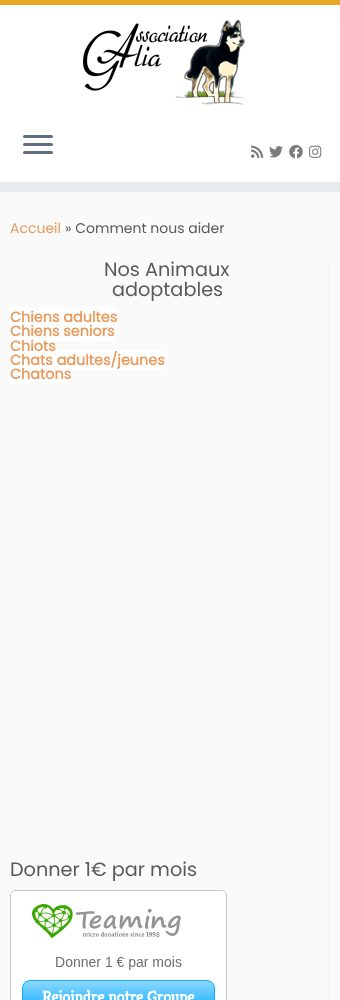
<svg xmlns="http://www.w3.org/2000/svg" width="340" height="1000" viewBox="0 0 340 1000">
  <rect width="100%" height="100%" fill="rgb(250,250,250)"/>
  <rect x="0" y="5" width="340" height="177" fill="rgb(255,255,255)"/>
  <rect x="0" y="0" width="340" height="5" fill="rgb(233,168,37)"/>
  <rect x="0" y="182" width="340" height="10" fill="rgb(233,234,238)"/>
  <image x="83" y="19" width="165" height="86" href="pic1.png"/>
  <rect x="23" y="135" width="30" height="3" rx="1.5" fill="rgb(95,111,129)"/>
  <rect x="23" y="143" width="30" height="3" rx="1.5" fill="rgb(95,111,129)"/>
  <rect x="23" y="151" width="30" height="3" rx="1.5" fill="rgb(95,111,129)"/>
  <image x="251" y="145" width="13" height="13" href="pic2.png"/>
  <image x="269" y="146" width="14" height="12" href="pic3.png"/>
  <image x="289" y="145" width="14" height="14" href="pic4.png"/>
  <image x="309" y="145" width="13" height="13" href="pic5.png"/>
  <text x="10" y="233" font-family="Poppins" font-size="14" fill="rgb(231,155,93)">Accueil</text>
  <text x="65" y="233" font-family="Poppins" font-size="14" fill="rgb(90,90,90)">» Comment nous aider</text>
  <rect x="329" y="260" width="1" height="740" fill="rgb(238,238,238)"/>
  <g font-family="Poppins" font-size="19.25" fill="rgb(90,90,90)">
    <text x="104" y="276">Nos Animaux</text>
    <text x="112" y="296">adoptables</text>
  </g>
  <rect x="330" y="260" width="1" height="740" fill="rgb(255,255,255)"/>
  <rect x="10" y="307" width="107" height="20" fill="rgb(255,255,255)"/>
  <text x="10" y="322" font-family="Poppins" font-size="14.4" font-weight="bold" fill="rgb(231,155,93)">Chiens adultes</text>
  <rect x="10" y="327" width="105" height="14" fill="rgb(255,255,255)"/>
  <text x="10" y="336" font-family="Poppins" font-size="14.4" font-weight="bold" fill="rgb(231,155,93)">Chiens seniors</text>
  <rect x="10" y="341" width="46" height="9" fill="rgb(255,255,255)"/>
  <rect x="10" y="350" width="155" height="20" fill="rgb(255,255,255)"/>
  <g font-family="Poppins" font-size="14.4" font-weight="bold" fill="rgb(231,155,93)">
    <text>
      <tspan x="10" y="351">Chiots</tspan>
      <tspan x="10" y="365">Chats adultes/jeunes</tspan>
    </text>
  </g>
  <rect x="10" y="370" width="61" height="14" fill="rgb(255,255,255)"/>
  <text x="10" y="379" font-family="Poppins" font-size="14.4" font-weight="bold" fill="rgb(231,155,93)">Chatons</text>
  <text x="10" y="876" font-family="Poppins" font-size="19.25" fill="rgb(90,90,90)">Donner 1€ par mois</text>
  <image x="10" y="890" width="217" height="110" href="pic6.png"/>
</svg>
